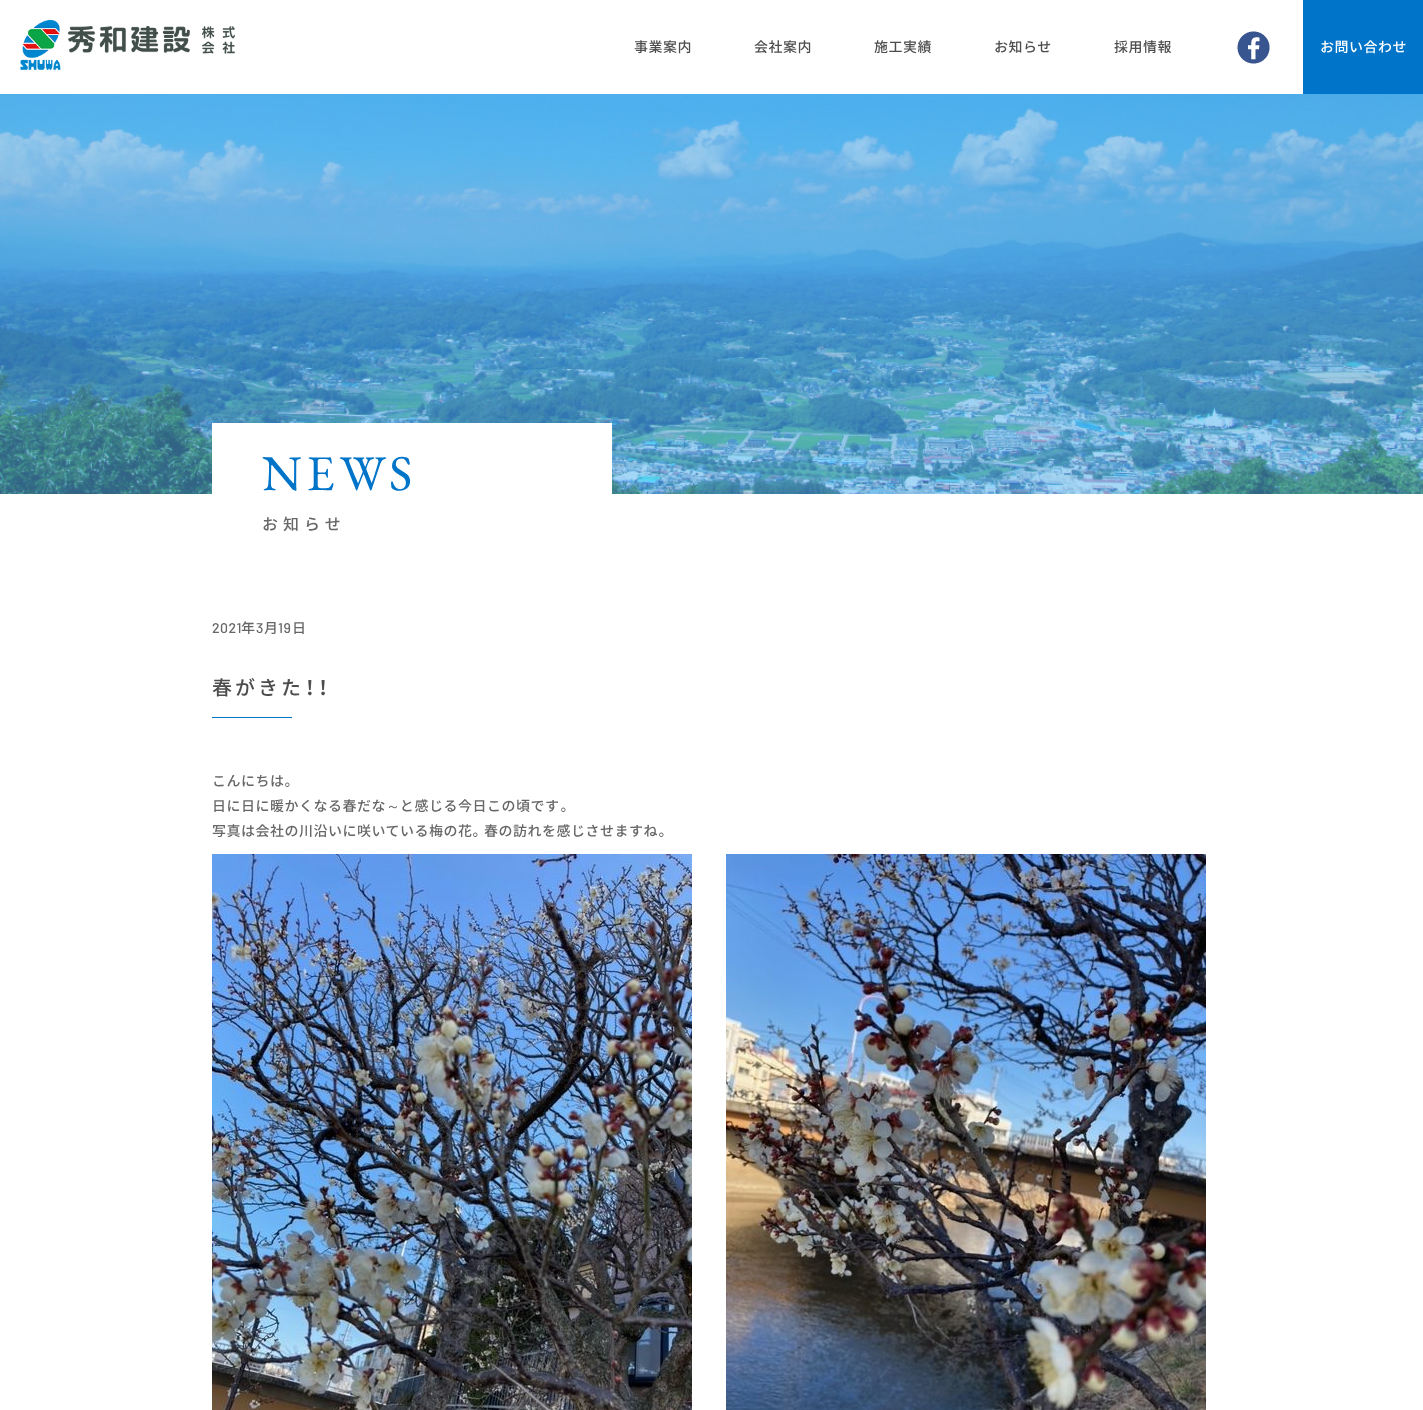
<svg xmlns="http://www.w3.org/2000/svg" width="1423" height="1410" viewBox="0 0 1423 1410">
  <rect width="100%" height="100%" fill="rgb(255,255,255)"/>
  <image x="20" y="20" width="215" height="50" href="pic1.png"/>
  <g font-family="Noto Sans JP" font-size="14" font-weight="500" letter-spacing="0.5" fill="rgb(77,77,77)">
    <text x="634" y="52">事業案内</text>
    <text x="754" y="52">会社案内</text>
    <text x="874" y="52">施工実績</text>
    <text x="994" y="52">お知らせ</text>
    <text x="1114" y="52">採用情報</text>
  </g>
  <image x="1237" y="31" width="33" height="33" href="pic2.png"/>
  <rect x="1303" y="0" width="120" height="94" fill="rgb(0,116,200)"/>
  <text x="1320" y="52" font-family="Noto Sans JP" font-size="14" font-weight="500" letter-spacing="0.5" fill="rgb(255,255,255)">お問い合わせ</text>
  <image x="0" y="94" width="1423" height="400" href="pic3.png"/>
  <rect x="212" y="423" width="400" height="71" fill="rgb(255,255,255)"/>
  <text x="262" y="490" font-family="EB Garamond" font-size="50" letter-spacing="5" fill="rgb(0,116,200)">NEWS</text>
  <text x="262" y="530" font-family="Noto Sans JP" font-size="16" font-weight="500" letter-spacing="5" fill="rgb(102,102,102)">お知らせ</text>
  <text x="212" y="633" font-family="Barlow" font-size="14" font-weight="500" letter-spacing="0.5" fill="rgb(102,102,102)">2021</text>
  <text x="241" y="633" font-family="Noto Sans JP" font-size="14" font-weight="500" letter-spacing="0.5" fill="rgb(102,102,102)">年</text>
  <text x="256" y="633" font-family="Barlow" font-size="14" font-weight="500" letter-spacing="0.5" fill="rgb(102,102,102)">3</text>
  <text x="264" y="633" font-family="Noto Sans JP" font-size="14" font-weight="500" letter-spacing="0.5" fill="rgb(102,102,102)">月</text>
  <text x="278" y="633" font-family="Barlow" font-size="14" font-weight="500" letter-spacing="0.5" fill="rgb(102,102,102)">19</text>
  <text x="292" y="633" font-family="Noto Sans JP" font-size="14" font-weight="500" letter-spacing="0.5" fill="rgb(102,102,102)">日</text>
  <text x="212" y="695" font-family="Noto Sans JP" font-size="20" font-weight="500" letter-spacing="3" fill="rgb(77,77,77)">春がきた</text>
  <text x="304" y="695" font-family="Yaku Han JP" font-size="20" font-weight="500" letter-spacing="3" fill="rgb(77,77,77)">！！</text>
  <rect x="212" y="717" width="80" height="1" fill="rgb(0,116,200)"/>
  <text x="212" y="786" font-family="Noto Sans JP" font-size="14" font-weight="500" letter-spacing="0.5" fill="rgb(102,102,102)">こんにちは</text>
  <text x="284" y="786" font-family="Yaku Han JP" font-size="14" font-weight="500" letter-spacing="0.5" fill="rgb(102,102,102)">。</text>
  <text x="212" y="811" font-family="Noto Sans JP" font-size="14" font-weight="500" letter-spacing="0.5" fill="rgb(102,102,102)">日に日に暖かくなる春だな</text>
  <text x="386" y="811" font-family="WenQuanYi Zen Hei" font-size="14" font-weight="500" letter-spacing="0.5" fill="rgb(102,102,102)">～</text>
  <text x="400" y="811" font-family="Noto Sans JP" font-size="14" font-weight="500" letter-spacing="0.5" fill="rgb(102,102,102)">と感じる今日この頃です</text>
  <text x="560" y="811" font-family="Yaku Han JP" font-size="14" font-weight="500" letter-spacing="0.5" fill="rgb(102,102,102)">。</text>
  <text x="212" y="836" font-family="Noto Sans JP" font-size="14" font-weight="500" letter-spacing="0.5" fill="rgb(102,102,102)">写真は会社の川沿いに咲いている梅の花</text>
  <text x="472" y="836" font-family="Yaku Han JP" font-size="14" font-weight="500" letter-spacing="0.5" fill="rgb(102,102,102)">。</text>
  <text x="484" y="836" font-family="Noto Sans JP" font-size="14" font-weight="500" letter-spacing="0.5" fill="rgb(102,102,102)">春の訪れを感じさせますね</text>
  <text x="658" y="836" font-family="Yaku Han JP" font-size="14" font-weight="500" letter-spacing="0.5" fill="rgb(102,102,102)">。</text>
  <image x="212" y="854" width="480" height="556" href="pic4.png"/>
  <image x="726" y="854" width="480" height="556" href="pic5.png"/>
</svg>
